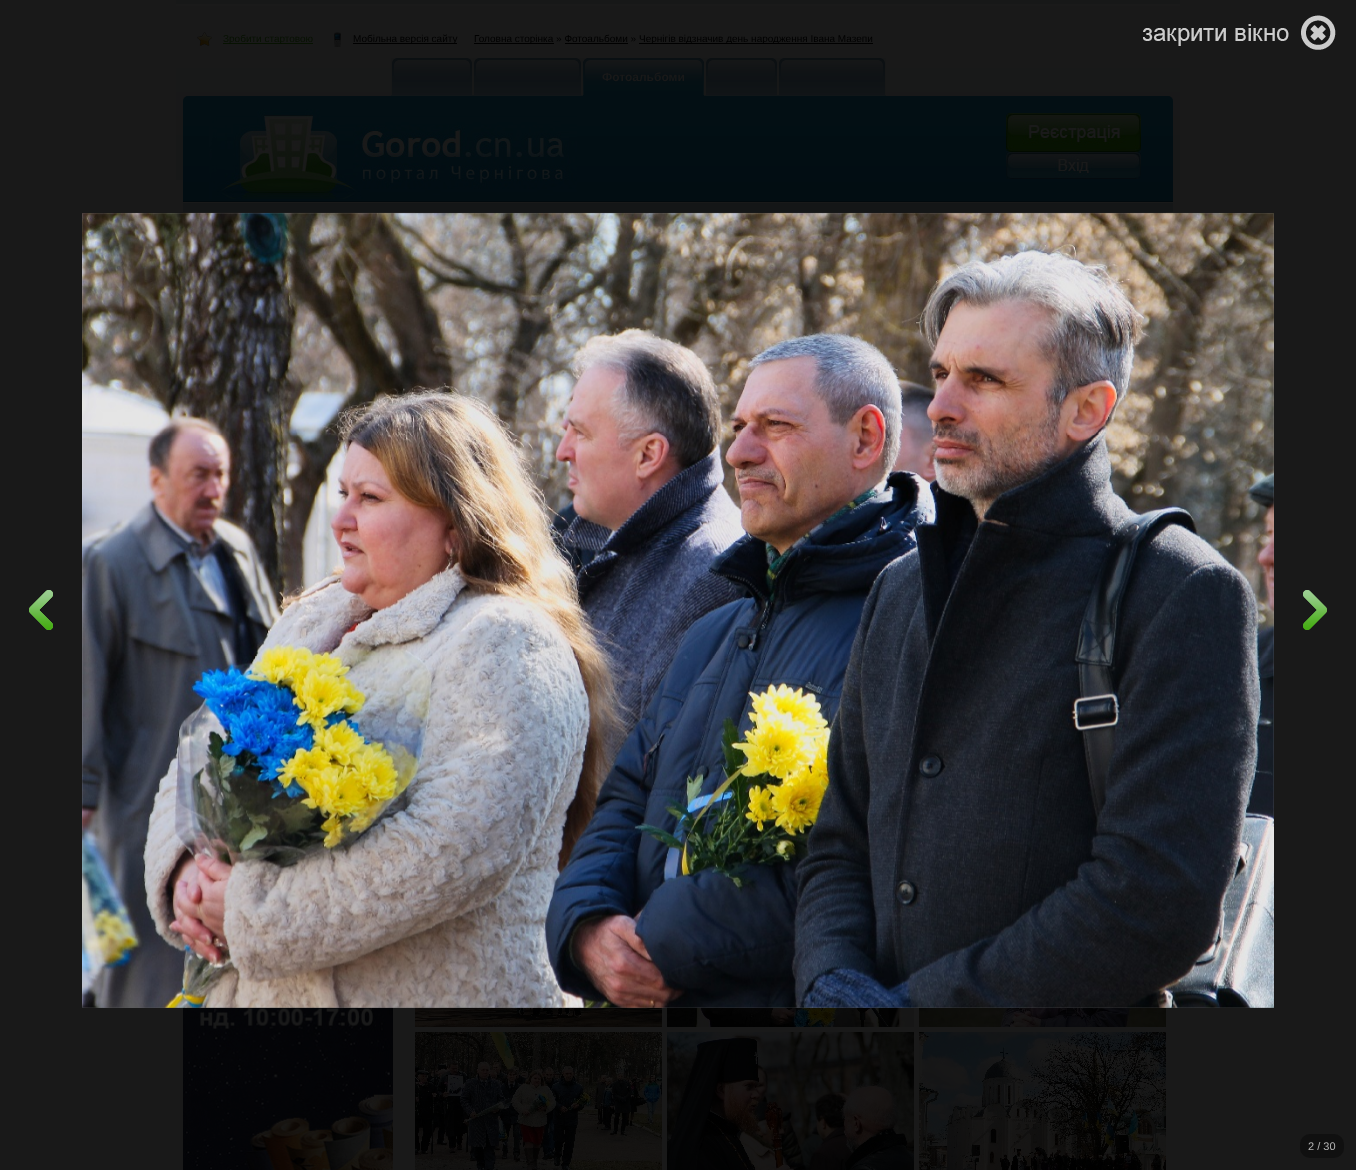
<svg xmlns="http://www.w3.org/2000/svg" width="1356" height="1170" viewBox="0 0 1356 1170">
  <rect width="100%" height="100%" fill="rgb(25,25,25)"/>
  <image x="176" y="0" width="1004" height="180" href="pic1.png"/>
  <image x="197" y="32" width="15" height="14" href="pic2.png"/>
  <rect x="223" y="43" width="90" height="1" fill="rgb(7,18,2)"/>
  <text x="223" y="42" font-family="Liberation Sans" font-size="10" fill="rgb(7,18,2)">Зробити стартовою</text>
  <image x="334" y="32" width="7" height="15" href="pic3.png"/>
  <rect x="353" y="43" width="104" height="1" fill="rgb(0,0,0)"/>
  <text x="353" y="42" font-family="Liberation Sans" font-size="10" fill="rgb(0,0,0)">Мобільна версія сайту</text>
  <rect x="474" y="43" width="80" height="1" fill="rgb(0,0,0)"/>
  <text x="474" y="42" font-family="Liberation Sans" font-size="10" fill="rgb(0,0,0)">Головна сторінка » Фотоальбоми »</text>
  <rect x="639" y="43" width="234" height="1" fill="rgb(0,0,0)"/>
  <text x="639" y="42" font-family="Liberation Sans" font-size="10" fill="rgb(0,0,0)">Чернігів відзначив день народження Івана Мазепи</text>
  <rect x="565" y="43" width="63" height="1" fill="rgb(0,0,0)"/>
  <image x="463" y="58" width="10" height="38" href="pic4.png"/>
  <image x="391" y="58" width="10" height="38" href="pic5.png"/>
  <image x="401" y="58" width="62" height="38" href="pic6.png"/>
  <image x="572" y="58" width="10" height="38" href="pic4.png"/>
  <image x="473" y="58" width="10" height="38" href="pic5.png"/>
  <image x="483" y="58" width="89" height="38" href="pic7.png"/>
  <image x="695" y="58" width="10" height="38" href="pic8.png"/>
  <image x="582" y="58" width="10" height="38" href="pic9.png"/>
  <image x="592" y="58" width="103" height="38" href="pic10.png"/>
  <text x="602" y="81" font-family="Liberation Sans" font-size="12" font-weight="bold" fill="rgb(25,25,25)">Фотоальбоми</text>
  <image x="768" y="58" width="10" height="38" href="pic4.png"/>
  <image x="705" y="58" width="10" height="38" href="pic5.png"/>
  <image x="715" y="58" width="53" height="38" href="pic11.png"/>
  <image x="876" y="58" width="10" height="38" href="pic4.png"/>
  <image x="778" y="58" width="10" height="38" href="pic5.png"/>
  <image x="788" y="58" width="88" height="38" href="pic12.png"/>
  <image x="183" y="96" width="990" height="105" href="pic13.png"/>
  <rect x="183" y="201" width="990" height="1" fill="rgb(1,9,13)"/>
  <image x="209" y="109" width="368" height="90" href="pic14.png"/>
  <image x="1006" y="113" width="135" height="39" href="pic15.png"/>
  <image x="1006" y="152" width="135" height="27" href="pic16.png"/>
  <rect x="183" y="203" width="990" height="9" fill="rgb(20,22,23)"/>
  <image x="183" y="1007" width="210" height="163" href="pic17.png"/>
  <image x="415" y="212" width="751" height="2" href="pic18.png"/>
  <image x="415" y="1007" width="247" height="20" href="pic19.png"/>
  <image x="667" y="1007" width="247" height="20" href="pic20.png"/>
  <image x="919" y="1007" width="247" height="20" href="pic21.png"/>
  <image x="415" y="1032" width="247" height="138" href="pic22.png"/>
  <image x="667" y="1032" width="247" height="138" href="pic23.png"/>
  <image x="919" y="1032" width="247" height="138" href="pic24.png"/>
  <image x="1143" y="15" width="193" height="35" href="pic25.png"/>
  <image x="29" y="590" width="24" height="40" href="pic26.png"/>
  <image x="1303" y="590" width="24" height="40" href="pic27.png"/>
  <image x="82" y="212" width="1192" height="796" href="pic28.png"/>
  <rect x="82" y="213" width="1" height="795" fill="rgba(255,255,255,0.08)"/>
  <rect x="83" y="213" width="1190" height="1" fill="rgba(255,255,255,0.08)"/>
  <rect x="1273" y="213" width="1" height="795" fill="rgba(255,255,255,0.08)"/>
  <rect x="83" y="1007" width="1190" height="1" fill="rgba(255,255,255,0.08)"/>
  <rect x="1300" y="1134" width="44" height="24" rx="10" fill="rgb(16,16,16)"/>
  <text x="1308" y="1150" font-family="Liberation Sans" font-size="11" fill="rgb(179,179,179)">2 / 30</text>
</svg>
